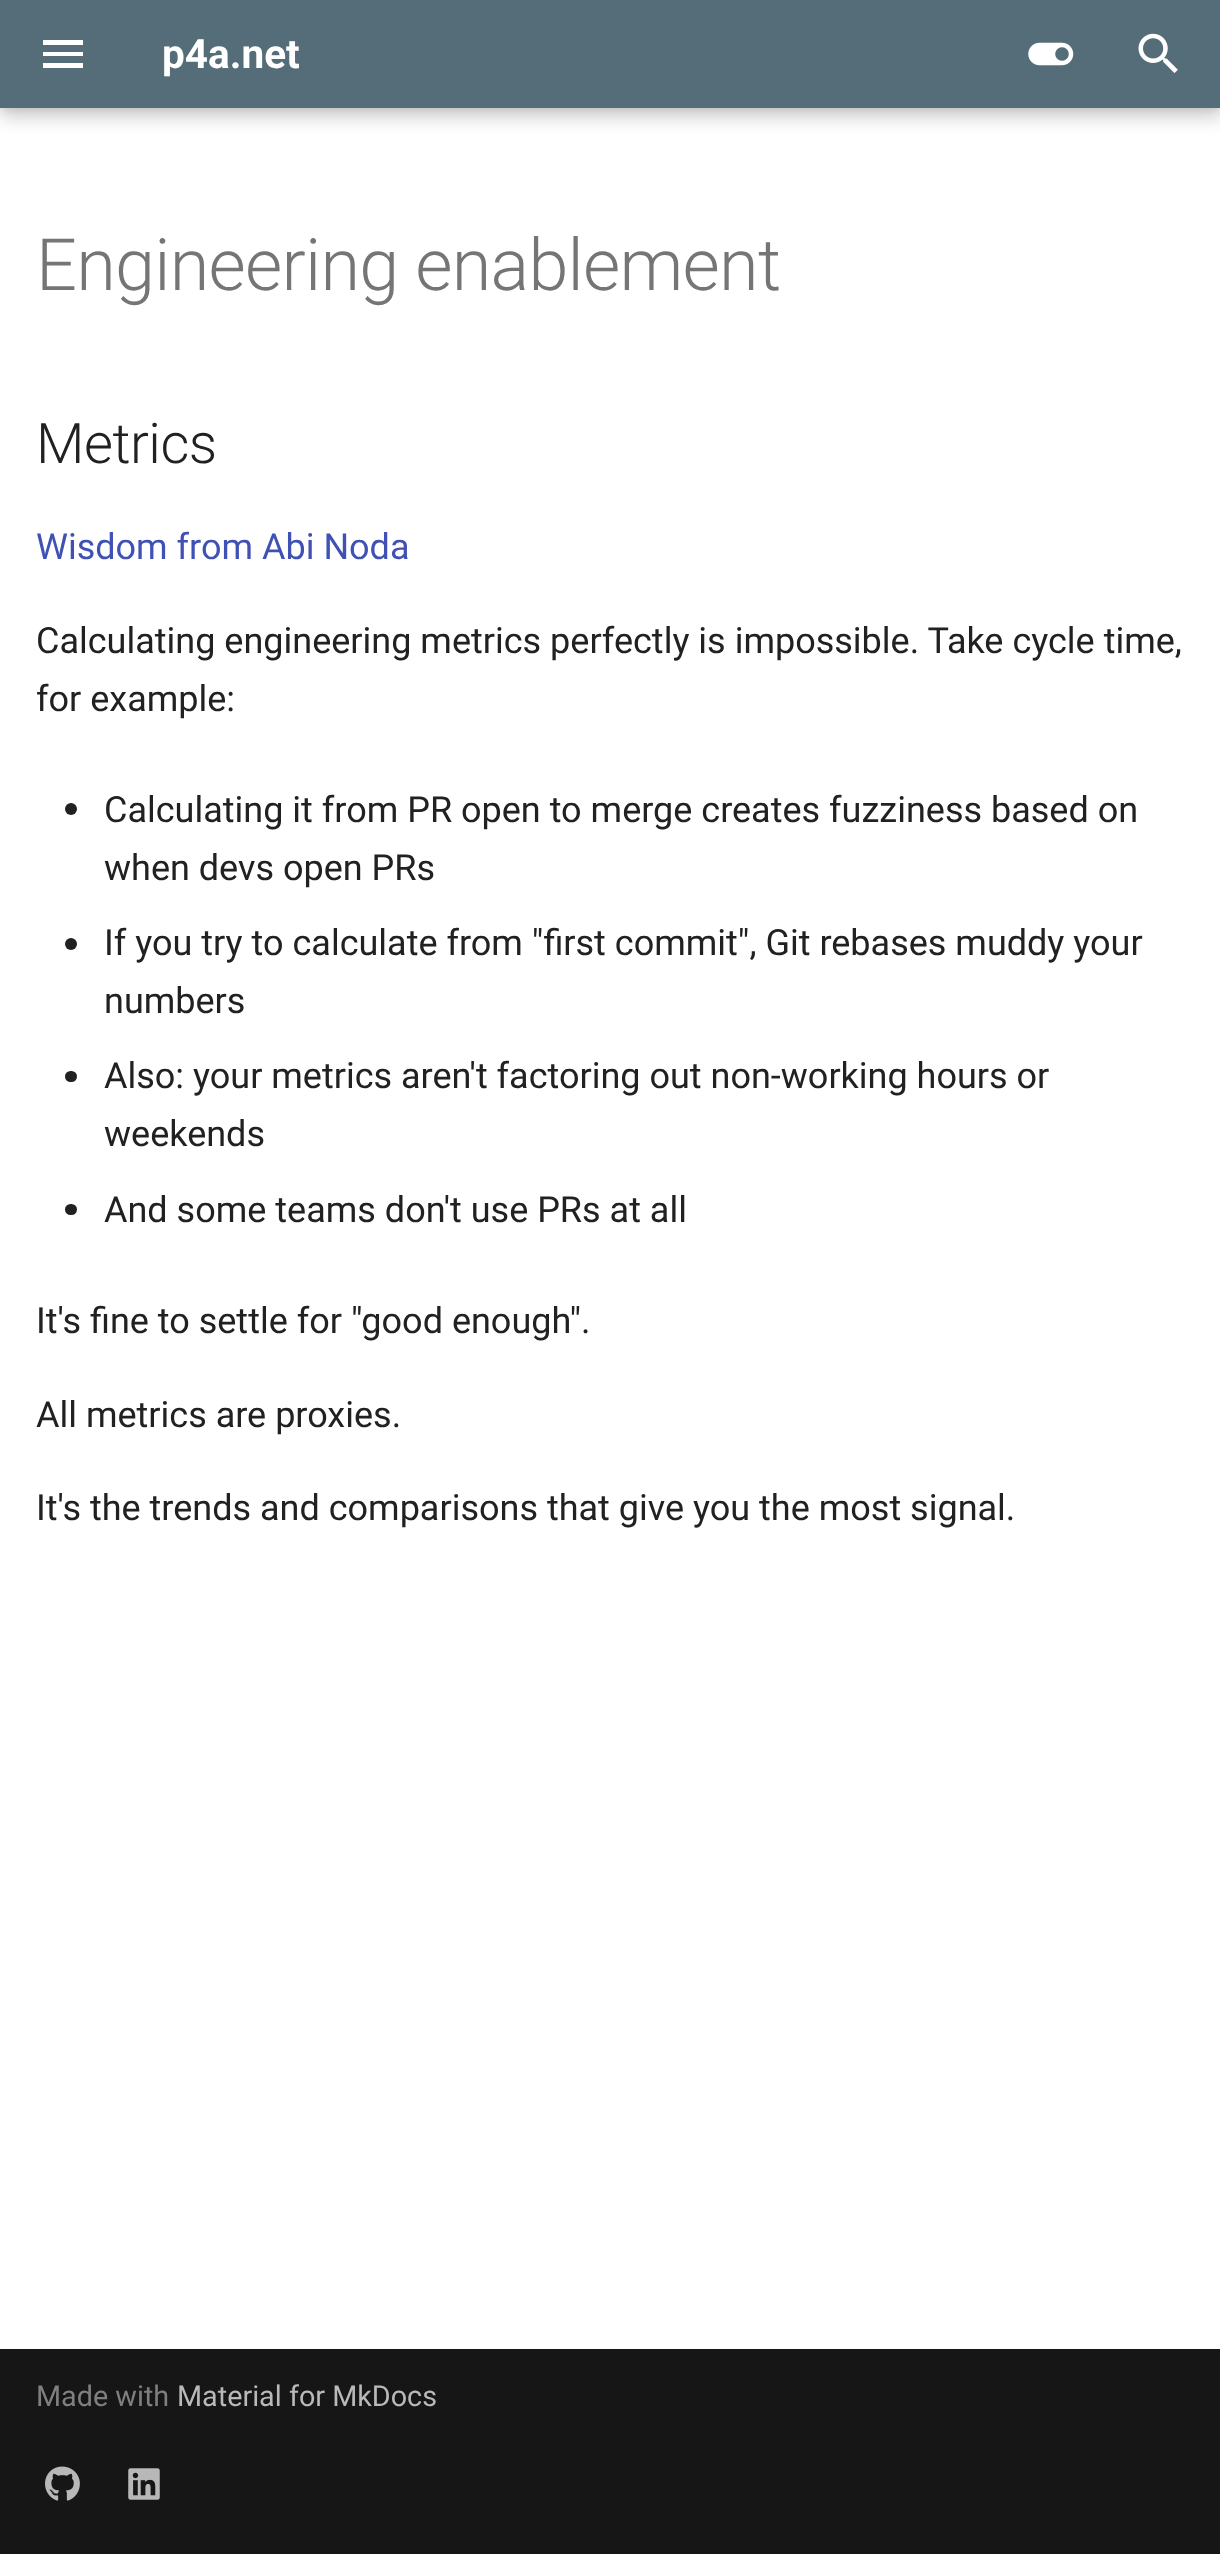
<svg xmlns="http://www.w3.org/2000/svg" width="1220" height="2554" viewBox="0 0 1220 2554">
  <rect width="100%" height="100%" fill="rgb(255,255,255)"/>
  <rect x="0" y="9" width="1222" height="108" fill="rgba(0,0,0,0.2)" filter="blur(9px)"/>
  <rect x="0" y="0" width="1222" height="108" fill="rgba(0,0,0,0.1)" filter="blur(4.5px)"/>
  <rect x="0" y="0" width="1220" height="108" fill="rgb(84,109,120)"/>
  <path d="M43 40H83V45H43ZM43 52H83V56H43ZM43 63H83V68H43Z" fill="rgb(255,255,255)"/>
  <text x="162" y="68" font-family="Roboto" font-size="40.5" font-weight="bold" fill="rgb(255,255,255)">p4a.net</text>
  <image x="1028" y="42" width="46" height="24" href="pic1.png"/>
  <image x="1138" y="33" width="40" height="40" href="pic2.png"/>
  <text x="36" y="290" font-family="Roboto" font-size="72" font-weight="300" letter-spacing="-0.75" fill="rgb(117,117,117)">Engineering enablement</text>
  <text x="36" y="463" font-family="Roboto" font-size="56" font-weight="300" letter-spacing="-0.5" fill="rgb(33,33,33)">Metrics</text>
  <text x="36" y="559" font-family="Roboto" font-size="36" fill="rgb(64,81,181)">Wisdom from Abi Noda</text>
  <g font-family="Roboto" font-size="36" fill="rgb(33,33,33)">
    <text>
      <tspan x="36" y="653">Calculating engineering metrics perfectly is impossible. Take cycle time,</tspan>
      <tspan x="36" y="711">for example:</tspan>
    </text>
  </g>
  <circle cx="71" cy="809" r="6" fill="rgb(33,33,33)"/>
  <g font-family="Roboto" font-size="36" fill="rgb(33,33,33)">
    <text>
      <tspan x="104" y="822">Calculating it from PR open to merge creates fuzziness based on</tspan>
      <tspan x="104" y="880">when devs open PRs</tspan>
    </text>
  </g>
  <circle cx="71" cy="944" r="6" fill="rgb(33,33,33)"/>
  <g font-family="Roboto" font-size="36" fill="rgb(33,33,33)">
    <text>
      <tspan x="104" y="955">If you try to calculate from "first commit", Git rebases muddy your</tspan>
      <tspan x="104" y="1013">numbers</tspan>
    </text>
  </g>
  <rect x="65" y="1071" width="12" height="11" rx="5.5" fill="rgb(33,33,33)"/>
  <g font-family="Roboto" font-size="36" fill="rgb(33,33,33)">
    <text>
      <tspan x="104" y="1088">Also: your metrics aren't factoring out non-working hours or</tspan>
      <tspan x="104" y="1146">weekends</tspan>
    </text>
  </g>
  <rect x="65" y="1204" width="12" height="11" rx="5.5" fill="rgb(33,33,33)"/>
  <g font-family="Roboto" font-size="36" fill="rgb(33,33,33)">
    <text x="104" y="1222">And some teams don't use PRs at all</text>
    <text x="36" y="1333">It's fine to settle for "good enough".</text>
    <text x="36" y="1427">All metrics are proxies.</text>
    <text x="36" y="1520">It's the trends and comparisons that give you the most signal.</text>
  </g>
  <rect x="0" y="2349" width="1220" height="205" fill="rgb(22,22,22)"/>
  <text x="36" y="2406" font-family="Roboto" font-size="28.75" fill="rgb(127,127,127)">Made with</text>
  <text x="177" y="2406" font-family="Roboto" font-size="28.75" fill="rgb(185,185,185)">Material for MkDocs</text>
  <image x="45" y="2466" width="35" height="35" href="pic3.png"/>
  <image x="128" y="2468" width="32" height="32" href="pic4.png"/>
</svg>
